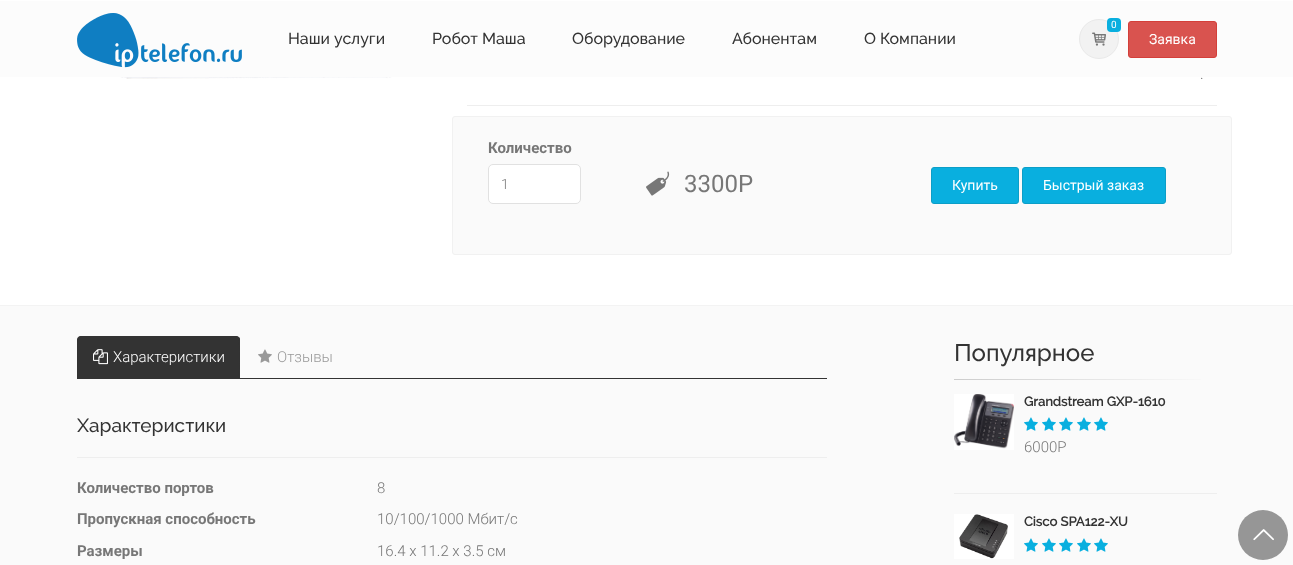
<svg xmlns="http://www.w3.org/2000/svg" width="1293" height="565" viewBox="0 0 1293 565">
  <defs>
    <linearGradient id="g1" gradientUnits="userSpaceOnUse" x1="954" y1="380" x2="1217" y2="380"><stop offset="0" stop-color="rgb(205,205,205)"/><stop offset="0.35" stop-color="rgb(220,220,220)"/><stop offset="0.7" stop-color="rgb(238,238,238)"/><stop offset="1" stop-color="rgb(250,250,250)"/></linearGradient>
  </defs>
  <rect width="100%" height="100%" fill="rgb(255,255,255)"/>
  <rect x="0" y="1" width="1293" height="76" fill="rgb(252,252,252)"/>
  <image x="77" y="13" width="165" height="55" href="pic1.png"/>
  <g font-family="Raleway" font-size="16" font-weight="500" fill="rgb(51,51,51)">
    <text x="288" y="44">Наши услуги</text>
    <text x="432" y="44">Робот Маша</text>
    <text x="572" y="44">Оборудование</text>
    <text x="732" y="44">Абонентам</text>
    <text x="864" y="44">О Компании</text>
  </g>
  <circle cx="1099" cy="39" r="19.5" fill="rgb(242,242,242)" stroke="rgb(233,233,233)"/>
  <rect x="1107" y="18" width="14" height="14" rx="4" fill="rgb(9,175,223)"/>
  <text x="1111" y="28" font-family="Roboto" font-size="10" fill="rgb(255,255,255)">0</text>
  <image x="1092" y="32" width="14" height="14" href="pic2.png"/>
  <rect x="1128.5" y="21.5" width="88" height="36" rx="2.5" fill="rgb(217,83,79)" stroke="rgb(212,63,58)"/>
  <text x="1149" y="44" font-family="Roboto" font-size="14" fill="rgb(255,255,255)">Заявка</text>
  <image x="120" y="77" width="273" height="2" href="pic3.png"/>
  <text x="1200" y="79" font-family="Roboto" font-size="15" font-weight="300" fill="rgb(119,119,119)">.</text>
  <rect x="467" y="105" width="750" height="1" fill="rgb(238,238,238)"/>
  <rect x="452.5" y="116.5" width="779" height="138" rx="2.5" fill="rgb(250,250,250)" stroke="rgb(241,241,241)"/>
  <text x="488" y="153" font-family="Roboto" font-size="15" font-weight="bold" fill="rgb(119,119,119)">Количество</text>
  <rect x="488.5" y="164.5" width="92" height="39" rx="4.5" fill="rgb(255,255,255)" stroke="rgb(225,225,225)"/>
  <text x="501" y="189" font-family="Roboto" font-size="14" font-weight="300" fill="rgb(119,119,119)">1</text>
  <image x="646" y="171" width="24" height="25" href="pic4.png"/>
  <text x="684" y="192" font-family="Roboto" font-size="24" fill="rgb(119,119,119)">3300Р</text>
  <rect x="931.5" y="167.5" width="87" height="36" rx="2.5" fill="rgb(9,175,223)" stroke="rgb(12,158,199)"/>
  <text x="952" y="190" font-family="Roboto" font-size="14" fill="rgb(255,255,255)">Купить</text>
  <rect x="1022.5" y="167.5" width="143" height="36" rx="2.5" fill="rgb(9,175,223)" stroke="rgb(12,158,199)"/>
  <text x="1043" y="190" font-family="Roboto" font-size="14" fill="rgb(255,255,255)">Быстрый заказ</text>
  <rect x="0" y="306" width="1293" height="259" fill="rgb(250,250,250)"/>
  <rect x="0" y="305" width="1293" height="1" fill="rgb(243,243,243)"/>
  <rect x="240" y="378" width="587" height="1" fill="rgb(51,51,51)"/>
  <path d="M81 336H236C238 336 240 338 240 340V379H77V340C77 338 79 336 81 336Z" fill="rgb(51,51,51)"/>
  <path d="M81 336L78 337L79 338L81 337H236L238 338L239 337L236 336Z" fill="rgb(51,51,51)"/>
  <path d="M240 379V340C240 339 240 338 239 337L238 338C240 340 239 373 239 378Z" fill="rgb(51,51,51)"/>
  <path d="M77 379L78 378C78 373 77 340 79 338L78 337L77 340Z" fill="rgb(51,51,51)"/>
  <image x="93" y="349" width="15" height="16" href="pic5.png"/>
  <text x="113" y="362" font-family="Roboto" font-size="15" font-weight="300" fill="rgb(255,255,255)">Характеристики</text>
  <image x="258" y="349" width="14" height="14" href="pic6.png"/>
  <text x="277" y="362" font-family="Roboto" font-size="15" font-weight="300" fill="rgb(153,153,153)">Отзывы</text>
  <text x="77" y="432" font-family="Raleway" font-size="19" font-weight="500" fill="rgb(51,51,51)">Характеристики</text>
  <rect x="77" y="457" width="750" height="1" fill="rgb(238,238,238)"/>
  <text x="77" y="493" font-family="Roboto" font-size="15" font-weight="bold" fill="rgb(119,119,119)">Количество портов</text>
  <text x="377" y="493" font-family="Roboto" font-size="15" font-weight="300" fill="rgb(119,119,119)">8</text>
  <text x="77" y="524" font-family="Roboto" font-size="15" font-weight="bold" fill="rgb(119,119,119)">Пропускная способность</text>
  <text x="377" y="524" font-family="Roboto" font-size="15" font-weight="300" fill="rgb(119,119,119)">10/100/1000 Мбит/с</text>
  <text x="77" y="556" font-family="Roboto" font-size="15" font-weight="bold" fill="rgb(119,119,119)">Размеры</text>
  <text x="377" y="556" font-family="Roboto" font-size="15" font-weight="300" fill="rgb(119,119,119)">16.4 x 11.2 x 3.5 см</text>
  <text x="954" y="361" font-family="Raleway" font-size="24" font-weight="500" fill="rgb(51,51,51)">Популярное</text>
  <rect x="954" y="379" width="247" height="1" fill="url(#g1)"/>
  <image x="954" y="394" width="60" height="56" href="pic7.png"/>
  <text x="1024" y="406" font-family="Raleway" font-size="13" font-weight="bold" fill="rgb(51,51,51)">Grandstream GXP-1610</text>
  <image x="1024" y="417" width="14" height="14" href="pic8.png"/>
  <image x="1042" y="417" width="14" height="14" href="pic8.png"/>
  <image x="1059" y="417" width="14" height="14" href="pic8.png"/>
  <image x="1077" y="417" width="14" height="14" href="pic8.png"/>
  <image x="1094" y="417" width="14" height="14" href="pic8.png"/>
  <text x="1024" y="452" font-family="Roboto" font-size="15" font-weight="300" fill="rgb(119,119,119)">6000Р</text>
  <rect x="954" y="493" width="263" height="1" fill="rgb(238,238,238)"/>
  <image x="954" y="514" width="60" height="45" href="pic9.png"/>
  <text x="1024" y="526" font-family="Raleway" font-size="13" font-weight="bold" fill="rgb(51,51,51)">Cisco SPA122-XU</text>
  <image x="1024" y="538" width="14" height="14" href="pic8.png"/>
  <image x="1042" y="538" width="14" height="14" href="pic8.png"/>
  <image x="1059" y="538" width="14" height="14" href="pic8.png"/>
  <image x="1077" y="538" width="14" height="14" href="pic8.png"/>
  <image x="1094" y="538" width="14" height="14" href="pic8.png"/>
  <circle cx="1263" cy="535" r="25" fill="rgb(150,150,150)"/>
  <image x="1253" y="529" width="21" height="12" href="pic10.png"/>
</svg>
